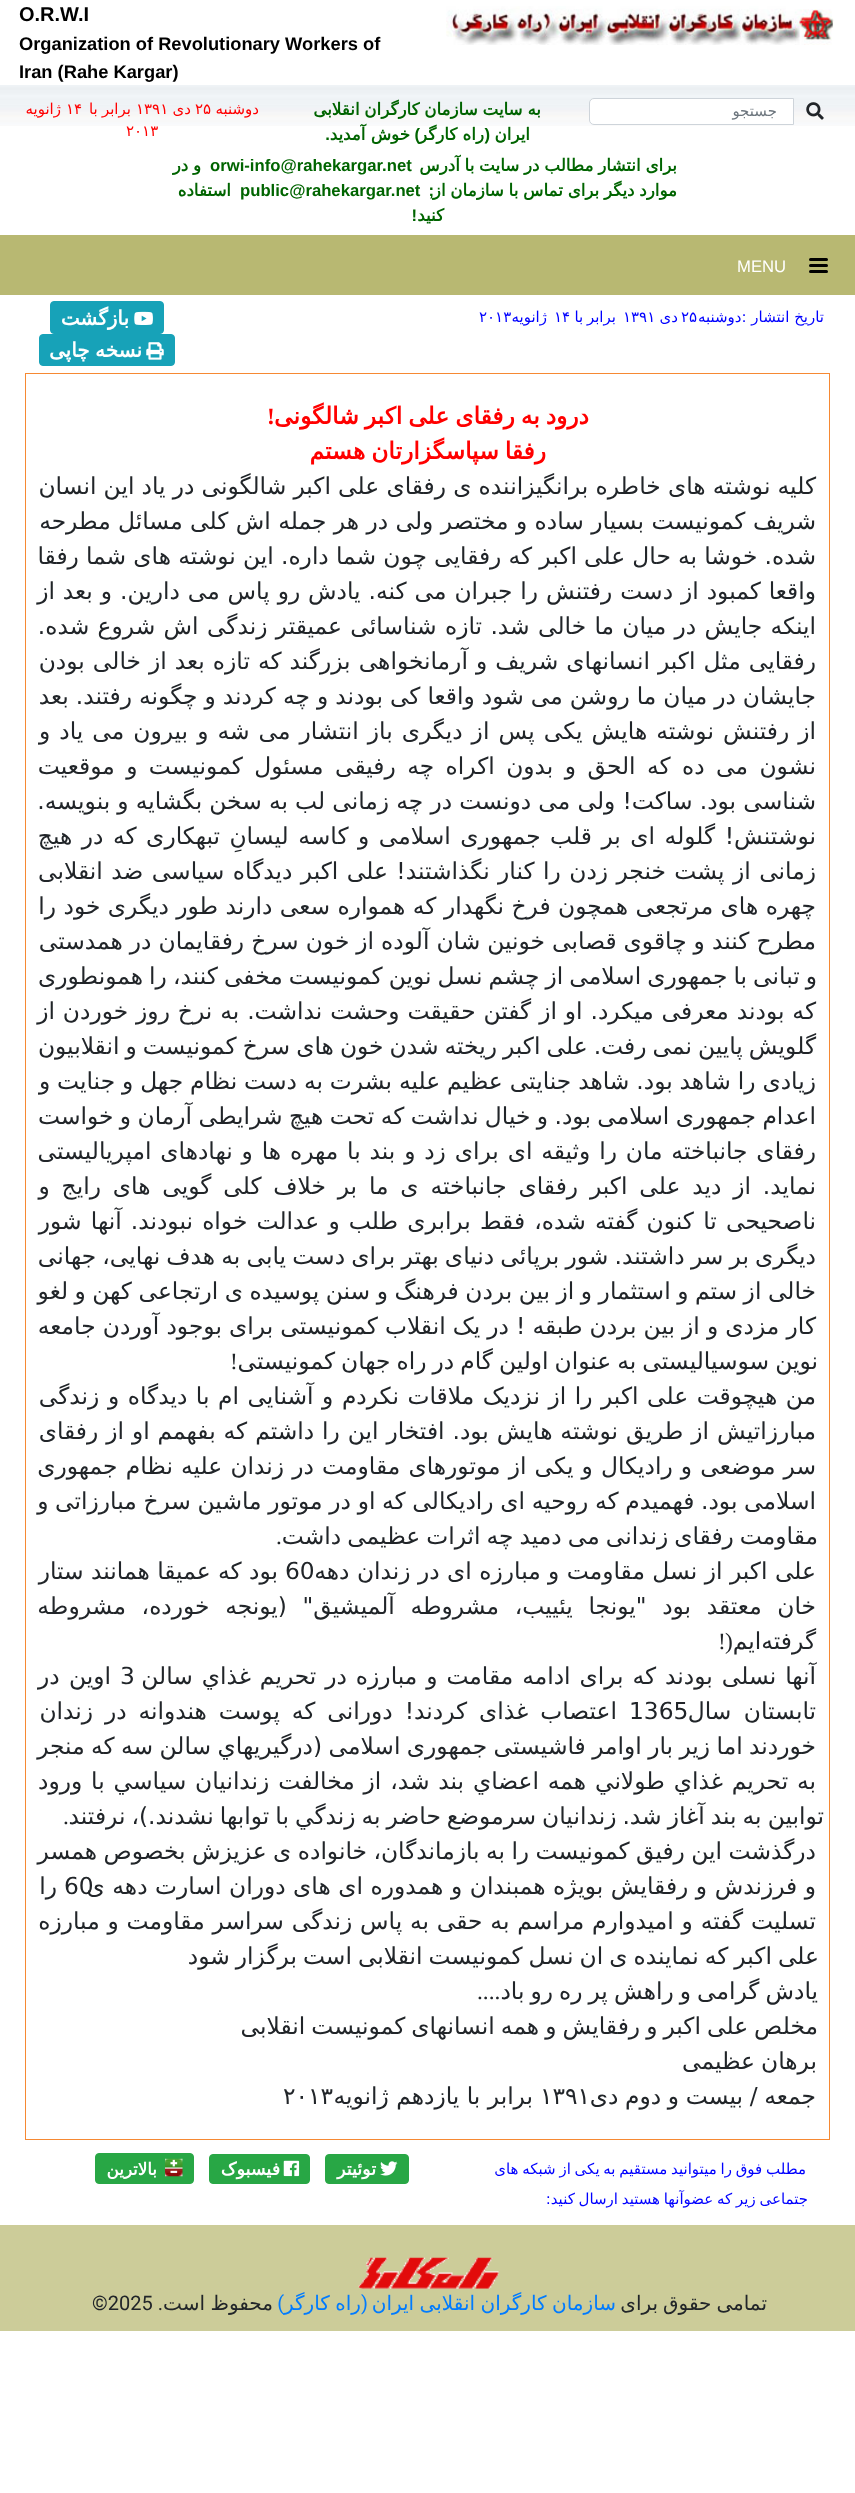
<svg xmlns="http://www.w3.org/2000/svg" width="855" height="2493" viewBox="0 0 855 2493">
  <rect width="100%" height="100%" fill="rgb(255,255,255)"/>
  <image x="446" y="6" width="388" height="39" href="pic1.png"/>
  <text x="19" y="21" font-family="Liberation Sans" font-size="20" font-weight="bold" fill="rgb(0,0,0)">O.R.W.I</text>
  <g font-family="Liberation Sans" font-size="18.3" font-weight="bold" fill="rgb(0,0,0)">
    <text>
      <tspan x="19" y="50">Organization of Revolutionary Workers of</tspan>
      <tspan x="19" y="78">Iran (Rahe Kargar)</tspan>
    </text>
  </g>
  <image x="0" y="85" width="855" height="41" href="pic2.png"/>
  <image x="806" y="102" width="18" height="18" href="pic3.png"/>
  <path d="M594 98.5H793.5V124.5H594C591.5 124.5 589.5 122.5 589.5 120V103C589.5 100.5 591.5 98.5 594 98.5Z" fill="rgb(255,255,255)" stroke="rgb(206,212,218)"/>
  <text x="777" y="116" font-family="DejaVu Sans" font-size="15" direction="rtl" fill="rgb(108,117,125)">جستجو</text>
  <g font-family="DejaVu Sans" font-size="16.7" font-weight="bold" direction="rtl" fill="rgb(0,100,0)">
    <text x="541" y="115" word-spacing="-0.5">به سايت سازمان کارگران انقلابی</text>
    <text x="530" y="140">ايران</text>
  </g>
  <text x="490" y="140" font-family="Liberation Sans" font-size="16.7" font-weight="bold" direction="rtl" fill="rgb(0,100,0)">(</text>
  <text x="484" y="140" font-family="DejaVu Sans" font-size="16.7" font-weight="bold" direction="rtl" fill="rgb(0,100,0)">راه کارگر</text>
  <text x="420" y="140" font-family="Liberation Sans" font-size="16.7" font-weight="bold" direction="rtl" fill="rgb(0,100,0)">)</text>
  <text x="410" y="140" font-family="DejaVu Sans" font-size="16.7" font-weight="bold" direction="rtl" fill="rgb(0,100,0)">خوش آمديد</text>
  <text x="330" y="140" font-family="Liberation Sans" font-size="16.7" font-weight="bold" direction="rtl" fill="rgb(0,100,0)">.</text>
  <text x="259" y="114" font-family="DejaVu Sans" font-size="15" direction="rtl" fill="rgb(255,0,0)">دوشنبه</text>
  <text x="195" y="114" font-family="DejaVu Sans" font-size="15" fill="rgb(255,0,0)">۲۵</text>
  <text x="191" y="114" font-family="DejaVu Sans" font-size="15" direction="rtl" fill="rgb(255,0,0)">دی</text>
  <text x="136" y="114" font-family="DejaVu Sans" font-size="15" fill="rgb(255,0,0)">۱۳۹۱</text>
  <text x="131" y="114" word-spacing="-0.5" font-family="DejaVu Sans" font-size="15" direction="rtl" fill="rgb(255,0,0)">برابر با</text>
  <text x="66" y="114" font-family="DejaVu Sans" font-size="15" fill="rgb(255,0,0)">۱۴</text>
  <text x="61" y="114" font-family="DejaVu Sans" font-size="15" direction="rtl" fill="rgb(255,0,0)">ژانويه</text>
  <text x="126" y="136" font-family="DejaVu Sans" font-size="15" fill="rgb(255,0,0)">۲۰۱۳</text>
  <text x="677" y="171" word-spacing="-0.5" font-family="DejaVu Sans" font-size="16.7" font-weight="bold" direction="rtl" fill="rgb(0,100,0)">برای انتشار مطالب در سايت با آدرس</text>
  <text x="210" y="171" font-family="Liberation Sans" font-size="16.7" font-weight="bold" fill="rgb(0,100,0)">orwi-info@rahekargar.net</text>
  <g font-family="DejaVu Sans" font-size="16.7" font-weight="bold" direction="rtl" fill="rgb(0,100,0)">
    <text x="201" y="171" word-spacing="-0.5">و در</text>
    <text x="677" y="196" word-spacing="-0.5">موارد ديگر برای تماس با سازمان از</text>
  </g>
  <text x="434" y="196" font-family="Liberation Sans" font-size="16.7" font-weight="bold" direction="rtl" fill="rgb(0,100,0)">;</text>
  <text x="240" y="196" font-family="Liberation Sans" font-size="16.7" font-weight="bold" fill="rgb(0,100,0)">public@rahekargar.net</text>
  <g font-family="DejaVu Sans" font-size="16.7" font-weight="bold" direction="rtl" fill="rgb(0,100,0)">
    <text x="231" y="196">استفاده</text>
    <text x="444" y="221">کنید</text>
  </g>
  <text x="417" y="221" font-family="Liberation Sans" font-size="16.7" font-weight="bold" direction="rtl" fill="rgb(0,100,0)">!</text>
  <rect x="0" y="235" width="855" height="60" fill="rgb(184,184,114)"/>
  <rect x="809" y="258" width="19" height="3" rx="1.5" fill="rgb(0,0,0)"/>
  <rect x="809" y="264" width="19" height="3" rx="1.5" fill="rgb(0,0,0)"/>
  <rect x="809" y="270" width="19" height="3" rx="1.5" fill="rgb(0,0,0)"/>
  <text x="737" y="272" font-family="Liberation Sans" font-size="16.7" fill="rgb(255,255,255)">MENU</text>
  <text x="824" y="322" font-family="DejaVu Sans" font-size="15" direction="rtl" fill="rgb(0,0,255)">تاریخ انتشار :دوشنبه</text>
  <text x="681" y="322" font-family="DejaVu Sans" font-size="15" fill="rgb(0,0,255)">۲۵</text>
  <text x="678" y="322" font-family="DejaVu Sans" font-size="15" direction="rtl" fill="rgb(0,0,255)">دی</text>
  <text x="623" y="322" font-family="DejaVu Sans" font-size="15" fill="rgb(0,0,255)">۱۳۹۱</text>
  <text x="616" y="322" word-spacing="-1" font-family="DejaVu Sans" font-size="15" direction="rtl" fill="rgb(0,0,255)">برابر با</text>
  <text x="554" y="322" font-family="DejaVu Sans" font-size="15" fill="rgb(0,0,255)">۱۴</text>
  <text x="547" y="322" font-family="DejaVu Sans" font-size="15" direction="rtl" fill="rgb(0,0,255)">ژانويه</text>
  <text x="479" y="322" font-family="DejaVu Sans" font-size="15" fill="rgb(0,0,255)">۲۰۱۳</text>
  <rect x="50.5" y="301.5" width="113" height="32" rx="3.5" fill="rgb(23,162,184)" stroke="rgb(23,162,184)"/>
  <image x="134" y="311" width="19" height="14" href="pic4.png"/>
  <text x="129" y="325" font-family="DejaVu Sans" font-size="20" font-weight="bold" direction="rtl" fill="rgb(255,255,255)">بازگشت</text>
  <rect x="39.5" y="334.5" width="135" height="31" rx="3.5" fill="rgb(23,162,184)" stroke="rgb(23,162,184)"/>
  <image x="146" y="342" width="18" height="18" href="pic5.png"/>
  <text x="142" y="357" word-spacing="-1" font-family="DejaVu Sans" font-size="20" font-weight="bold" direction="rtl" fill="rgb(255,255,255)">نسخه چاپی</text>
  <rect x="25.5" y="373.5" width="804" height="1766" fill="none" stroke="rgb(246,137,51)"/>
  <text x="589" y="424" word-spacing="-1.5" font-family="DejaVu Sans" font-size="23.35" font-weight="bold" direction="rtl" fill="rgb(255,0,0)">درود به رفقای علی اکبر شالگونی</text>
  <text x="267" y="424" font-family="Liberation Serif" font-size="23.35" font-weight="bold" fill="rgb(255,0,0)">!</text>
  <text x="546" y="459" word-spacing="-1.5" font-family="DejaVu Sans" font-size="23.35" font-weight="bold" direction="rtl" fill="rgb(255,0,0)">رفقا سپاسگزارتان هستم</text>
  <g font-family="DejaVu Sans" font-size="23.35" direction="rtl" fill="rgb(33,37,41)">
    <text>
      <tspan x="816" y="494" word-spacing="-0.25">کلیه نوشته های خاطره برانگیزاننده ی رفقای علی اکبر شالگونی در یاد این انسان</tspan>
      <tspan x="816" y="529">شریف کمونیست بسیار ساده و مختصر ولی در هر جمله اش کلی مسائل مطرحه</tspan>
      <tspan x="816" y="564" word-spacing="-0.25">شده. خوشا به حال علی اکبر که رفقایی چون شما داره. این نوشته های شما رفقا</tspan>
      <tspan x="816" y="599" word-spacing="0.5">واقعا کمبود از دست رفتنش را جبران می کنه. یادش رو پاس می دارین. و بعد از</tspan>
      <tspan x="816" y="634" word-spacing="0.9">اینکه جایش در میان ما خالی شد. تازه شناسائی عمیقتر زندگی اش شروع شده.</tspan>
      <tspan x="816" y="669" word-spacing="0.6">رفقایی مثل اکبر انسانهای شریف و آرمانخواهی بزرگند که تازه بعد از خالی بودن</tspan>
      <tspan x="816" y="704" word-spacing="-0.4">جایشان در میان ما روشن می شود واقعا کی بودند و چه کردند و چگونه رفتند. بعد</tspan>
      <tspan x="816" y="739" word-spacing="1.6">از رفتنش نوشته هایش یکی پس از دیگری باز انتشار می شه و بیرون می یاد و</tspan>
      <tspan x="816" y="774" word-spacing="4">نشون می ده که الحق و بدون اکراه چه رفیقی مسئول کمونیست و موقعیت</tspan>
      <tspan x="816" y="809" word-spacing="-0.25">شناسی بود. ساکت! ولی می دونست در چه زمانی لب به سخن بگشایه و بنویسه.</tspan>
      <tspan x="816" y="844" word-spacing="2.1">نوشتنش! گلوله ای بر قلب جمهوری اسلامی و کاسه لیسانِ تبهکاری که در هیچ</tspan>
      <tspan x="816" y="879" word-spacing="1">زمانی از پشت خنجر زدن را کنار نگذاشتند! علی اکبر دیدگاه سیاسی ضد انقلابی</tspan>
      <tspan x="816" y="914">چهره های مرتجعی همچون فرخ نگهدار که همواره سعی دارند طور دیگری خود را</tspan>
      <tspan x="816" y="949" word-spacing="-0.4">مطرح کنند و چاقوی قصابی خونین شان آلوده از خون سرخ رفقایمان در همدستی</tspan>
    </text>
    <text x="817" y="984" word-spacing="-1.4">و تبانی با جمهوری اسلامی از چشم نسل نوین کمونیست مخفی کنند، را همونطوری</text>
    <text>
      <tspan x="816" y="1019" word-spacing="0.5">که بودند معرفی میکرد. او از گفتن حقیقت وحشت نداشت. به نرخ روز خوردن از</tspan>
      <tspan x="816" y="1054" word-spacing="-1.4">گلویش پایین نمی رفت. علی اکبر ریخته شدن خون های سرخ کمونیست و انقلابیون</tspan>
      <tspan x="816" y="1089" word-spacing="-0.5">زیادی را شاهد بود. شاهد جنایتی عظیم علیه بشرت به دست نظام جهل و جنایت و</tspan>
      <tspan x="816" y="1124" word-spacing="-1">اعدام جمهوری اسلامی بود. و خیال نداشت که تحت هیچ شرایطی آرمان و خواست</tspan>
      <tspan x="816" y="1159" word-spacing="1.4">رفقای جانباخته مان را وثیقه ای برای زد و بند با مهره ها و نهادهای امپریالیستی</tspan>
      <tspan x="816" y="1194" word-spacing="4.4">نماید. از دید علی اکبر رفقای جانباخته ی ما بر خلاف کلی گویی های رایج و</tspan>
      <tspan x="816" y="1229" word-spacing="1.75">ناصحیحی تا کنون گفته شده، فقط برابری طلب و عدالت خواه نبودند. آنها شور</tspan>
      <tspan x="816" y="1264" word-spacing="-1.25">دیگری بر سر داشتند. شور برپائی دنیای بهتر برای دست یابی به هدف نهایی، جهانی</tspan>
      <tspan x="816" y="1299" word-spacing="-0.9">خالی از ستم و استثمار و از بین بردن فرهنگ و سنن پوسیده ی ارتجاعی کهن و لغو</tspan>
      <tspan x="816" y="1334" word-spacing="-0.3">کار مزدی و از بین بردن طبقه ! در یک انقلاب کمونیستی برای بوجود آوردن جامعه</tspan>
    </text>
    <text x="818" y="1369" word-spacing="-1.4">نوین سوسیالیستی به عنوان اولین گام در راه جهان کمونیستی</text>
  </g>
  <text x="230" y="1369" font-family="Liberation Serif" font-size="23.35" fill="rgb(33,37,41)">!</text>
  <g font-family="DejaVu Sans" font-size="23.35" direction="rtl" fill="rgb(33,37,41)">
    <text>
      <tspan x="816" y="1404" word-spacing="1.1">من هیچوقت علی اکبر را از نزدیک ملاقات نکردم و آشنایی ام با دیدگاه و زندگی</tspan>
      <tspan x="816" y="1439" word-spacing="0.5">مبارزاتیش از طریق نوشته هایش بود. افتخار این را داشتم که بفهمم او از رفقای</tspan>
      <tspan x="816" y="1474" word-spacing="0.75">سر موضعی و رادیکال و یکی از موتورهای مقاومت در زندان علیه نظام جمهوری</tspan>
      <tspan x="816" y="1509" word-spacing="-0.75">اسلامی بود. فهمیدم که روحیه ای رادیکالی که او در موتور ماشین سرخ مبارزاتی و</tspan>
    </text>
    <text x="818" y="1544" word-spacing="-1.4">مقاومت رفقای زندانی می دمید چه اثرات عظیمی داشت</text>
  </g>
  <text x="276" y="1544" font-family="Liberation Serif" font-size="23.35" fill="rgb(33,37,41)">.</text>
  <text x="816" y="1579" font-family="DejaVu Sans" font-size="23.35" direction="rtl" fill="rgb(33,37,41)">علی اکبر از نسل مقاومت و مبارزه ای در زندان دهه</text>
  <text x="285" y="1579" font-family="DejaVu Sans" font-size="23.35" fill="rgb(33,37,41)">60</text>
  <g font-family="DejaVu Sans" font-size="23.35" direction="rtl" fill="rgb(33,37,41)">
    <text x="278" y="1579">بود که عمیقا همانند ستار</text>
    <text>
      <tspan x="816" y="1614" word-spacing="8.25">خان معتقد بود "يونجا يئييب، مشروطه آلميشيق" (يونجه خورده، مشروطه</tspan>
      <tspan x="816" y="1649">گرفته‌ايم</tspan>
    </text>
  </g>
  <g font-family="Liberation Serif" font-size="23.35" fill="rgb(33,37,41)">
    <text x="725" y="1649">)</text>
    <text x="718" y="1649">!</text>
  </g>
  <text x="816" y="1684" word-spacing="1.5" font-family="DejaVu Sans" font-size="23.35" direction="rtl" fill="rgb(33,37,41)">آنها نسلی بودند که برای ادامه مقامت و مبارزه در تحريم غذاي سالن</text>
  <text x="120" y="1684" font-family="DejaVu Sans" font-size="23.35" fill="rgb(33,37,41)">3</text>
  <g font-family="DejaVu Sans" font-size="23.35" direction="rtl" fill="rgb(33,37,41)">
    <text x="111" y="1684" word-spacing="2">اوين در</text>
    <text x="816" y="1719" word-spacing="5">تابستان سال</text>
  </g>
  <text x="629" y="1719" font-family="DejaVu Sans" font-size="23.35" fill="rgb(33,37,41)">1365</text>
  <g font-family="DejaVu Sans" font-size="23.35" direction="rtl" fill="rgb(33,37,41)">
    <text x="617" y="1719" word-spacing="4.5">اعتصاب غذای کردند! دورانی که پوست هندوانه در زندان</text>
    <text>
      <tspan x="816" y="1754" word-spacing="-1">خوردند اما زیر بار اوامر فاشیستی جمهوری اسلامی (درگيريهاي سالن سه که منجر</tspan>
      <tspan x="816" y="1789" word-spacing="1.4">به تحريم غذاي طولاني همه اعضاي بند شد، از مخالفت زندانيان سياسي با ورود</tspan>
    </text>
    <text x="824" y="1824" word-spacing="-1.4">توابين به بند آغاز شد. زندانيان سرموضع حاضر به زندگي با توابها نشدند.)، نرفتند</text>
  </g>
  <text x="63" y="1824" font-family="Liberation Serif" font-size="23.35" fill="rgb(33,37,41)">.</text>
  <text x="816" y="1859" word-spacing="-1" font-family="DejaVu Sans" font-size="23.35" direction="rtl" fill="rgb(33,37,41)">درگذشت این رفیق کمونیست را به بازماندگان، خانواده ی عزیزش بخصوص همسر</text>
  <text x="64" y="1894" font-family="DejaVu Sans" font-size="23.35" fill="rgb(33,37,41)">60</text>
  <g font-family="DejaVu Sans" font-size="23.35" direction="rtl" fill="rgb(33,37,41)">
    <text x="816" y="1894" word-spacing="0.1">و فرزندش و رفقایش بویژه همبندان و همدوره ای های دوران اسارت دهه ی</text>
    <text x="57" y="1894">را</text>
    <text x="816" y="1929" word-spacing="0.4">تسلیت گفته و امیدوارم مراسم به حقی به پاس زندگی سراسر مقاومت و مبارزه</text>
    <text x="819" y="1964" word-spacing="-1.4">علی اکبر که نماینده ی ان نسل کمونیست انقلابی است برگزار شود</text>
    <text x="818" y="1999" word-spacing="-1.4">یادش گرامی و راهش پر ره رو باد</text>
  </g>
  <text x="477" y="1999" font-family="Liberation Serif" font-size="23.35" fill="rgb(33,37,41)">....</text>
  <g font-family="DejaVu Sans" font-size="23.35" direction="rtl" fill="rgb(33,37,41)">
    <text x="818" y="2034" word-spacing="-1.4">مخلص علی اکبر و رفقایش و همه انسانهای کمونیست انقلابی</text>
    <text x="817" y="2069" word-spacing="-1.4">برهان عظیمی</text>
    <text x="816" y="2104" word-spacing="-0.75">جمعه / بيست و دوم دی</text>
  </g>
  <text x="540" y="2104" font-family="DejaVu Sans" font-size="23.35" fill="rgb(33,37,41)">۱۳۹۱</text>
  <text x="533" y="2104" font-family="DejaVu Sans" font-size="23.35" direction="rtl" fill="rgb(33,37,41)">برابر با یازدهم ژانويه</text>
  <text x="283" y="2104" font-family="DejaVu Sans" font-size="23.35" fill="rgb(33,37,41)">۲۰۱۳</text>
  <g font-family="DejaVu Sans" font-size="15" direction="rtl" fill="rgb(0,0,255)">
    <text x="806" y="2174" word-spacing="-1">مطلب فوق را میتوانید مستقیم به یکی از شبکه های</text>
    <text x="808" y="2204" word-spacing="-1">جتماعی زیر که عضوآنها هستید ارسال کنید:</text>
  </g>
  <rect x="325.5" y="2154.5" width="83" height="29" rx="3.5" fill="rgb(40,167,69)" stroke="rgb(40,167,69)"/>
  <image x="380" y="2161" width="18" height="15" href="pic6.png"/>
  <text x="376" y="2175" font-family="DejaVu Sans" font-size="17.5" font-weight="bold" direction="rtl" fill="rgb(255,255,255)">توئیتر</text>
  <rect x="209.5" y="2154.5" width="100" height="29" rx="3.5" fill="rgb(40,167,69)" stroke="rgb(40,167,69)"/>
  <image x="283" y="2160" width="17" height="17" href="pic7.png"/>
  <text x="280" y="2175" font-family="DejaVu Sans" font-size="17.5" font-weight="bold" direction="rtl" fill="rgb(255,255,255)">فیسبوک</text>
  <rect x="95.5" y="2153.5" width="98" height="30" rx="3.5" fill="rgb(40,167,69)" stroke="rgb(40,167,69)"/>
  <image x="165" y="2158" width="18" height="19" href="pic8.png"/>
  <text x="157" y="2175" font-family="DejaVu Sans" font-size="16.7" font-weight="bold" direction="rtl" fill="rgb(255,255,255)">بالاترين</text>
  <rect x="0" y="2225" width="855" height="106" fill="rgb(204,204,153)"/>
  <image x="358" y="2257" width="141" height="32" href="pic9.png"/>
  <text x="767" y="2310" word-spacing="-1.4" font-family="DejaVu Sans" font-size="20" direction="rtl" fill="rgb(33,37,41)">تمامی حقوق برای</text>
  <text x="616" y="2310" word-spacing="-0.9" font-family="DejaVu Sans" font-size="20" direction="rtl" fill="rgb(0,123,255)">سازمان کارگران انقلابی ايران</text>
  <text x="368" y="2310" font-family="Roboto" font-size="20" direction="rtl" fill="rgb(0,123,255)">(</text>
  <text x="361" y="2310" word-spacing="-0.9" font-family="DejaVu Sans" font-size="20" direction="rtl" fill="rgb(0,123,255)">راه کارگر</text>
  <text x="284" y="2310" font-family="Roboto" font-size="20" direction="rtl" fill="rgb(0,123,255)">)</text>
  <text x="273" y="2310" word-spacing="-1" font-family="DejaVu Sans" font-size="20" direction="rtl" fill="rgb(33,37,41)">محفوظ است</text>
  <text x="163" y="2310" font-family="Roboto" font-size="20" direction="rtl" fill="rgb(33,37,41)">.</text>
  <text x="92" y="2310" font-family="Roboto" font-size="20" fill="rgb(33,37,41)">©2025</text>
</svg>
